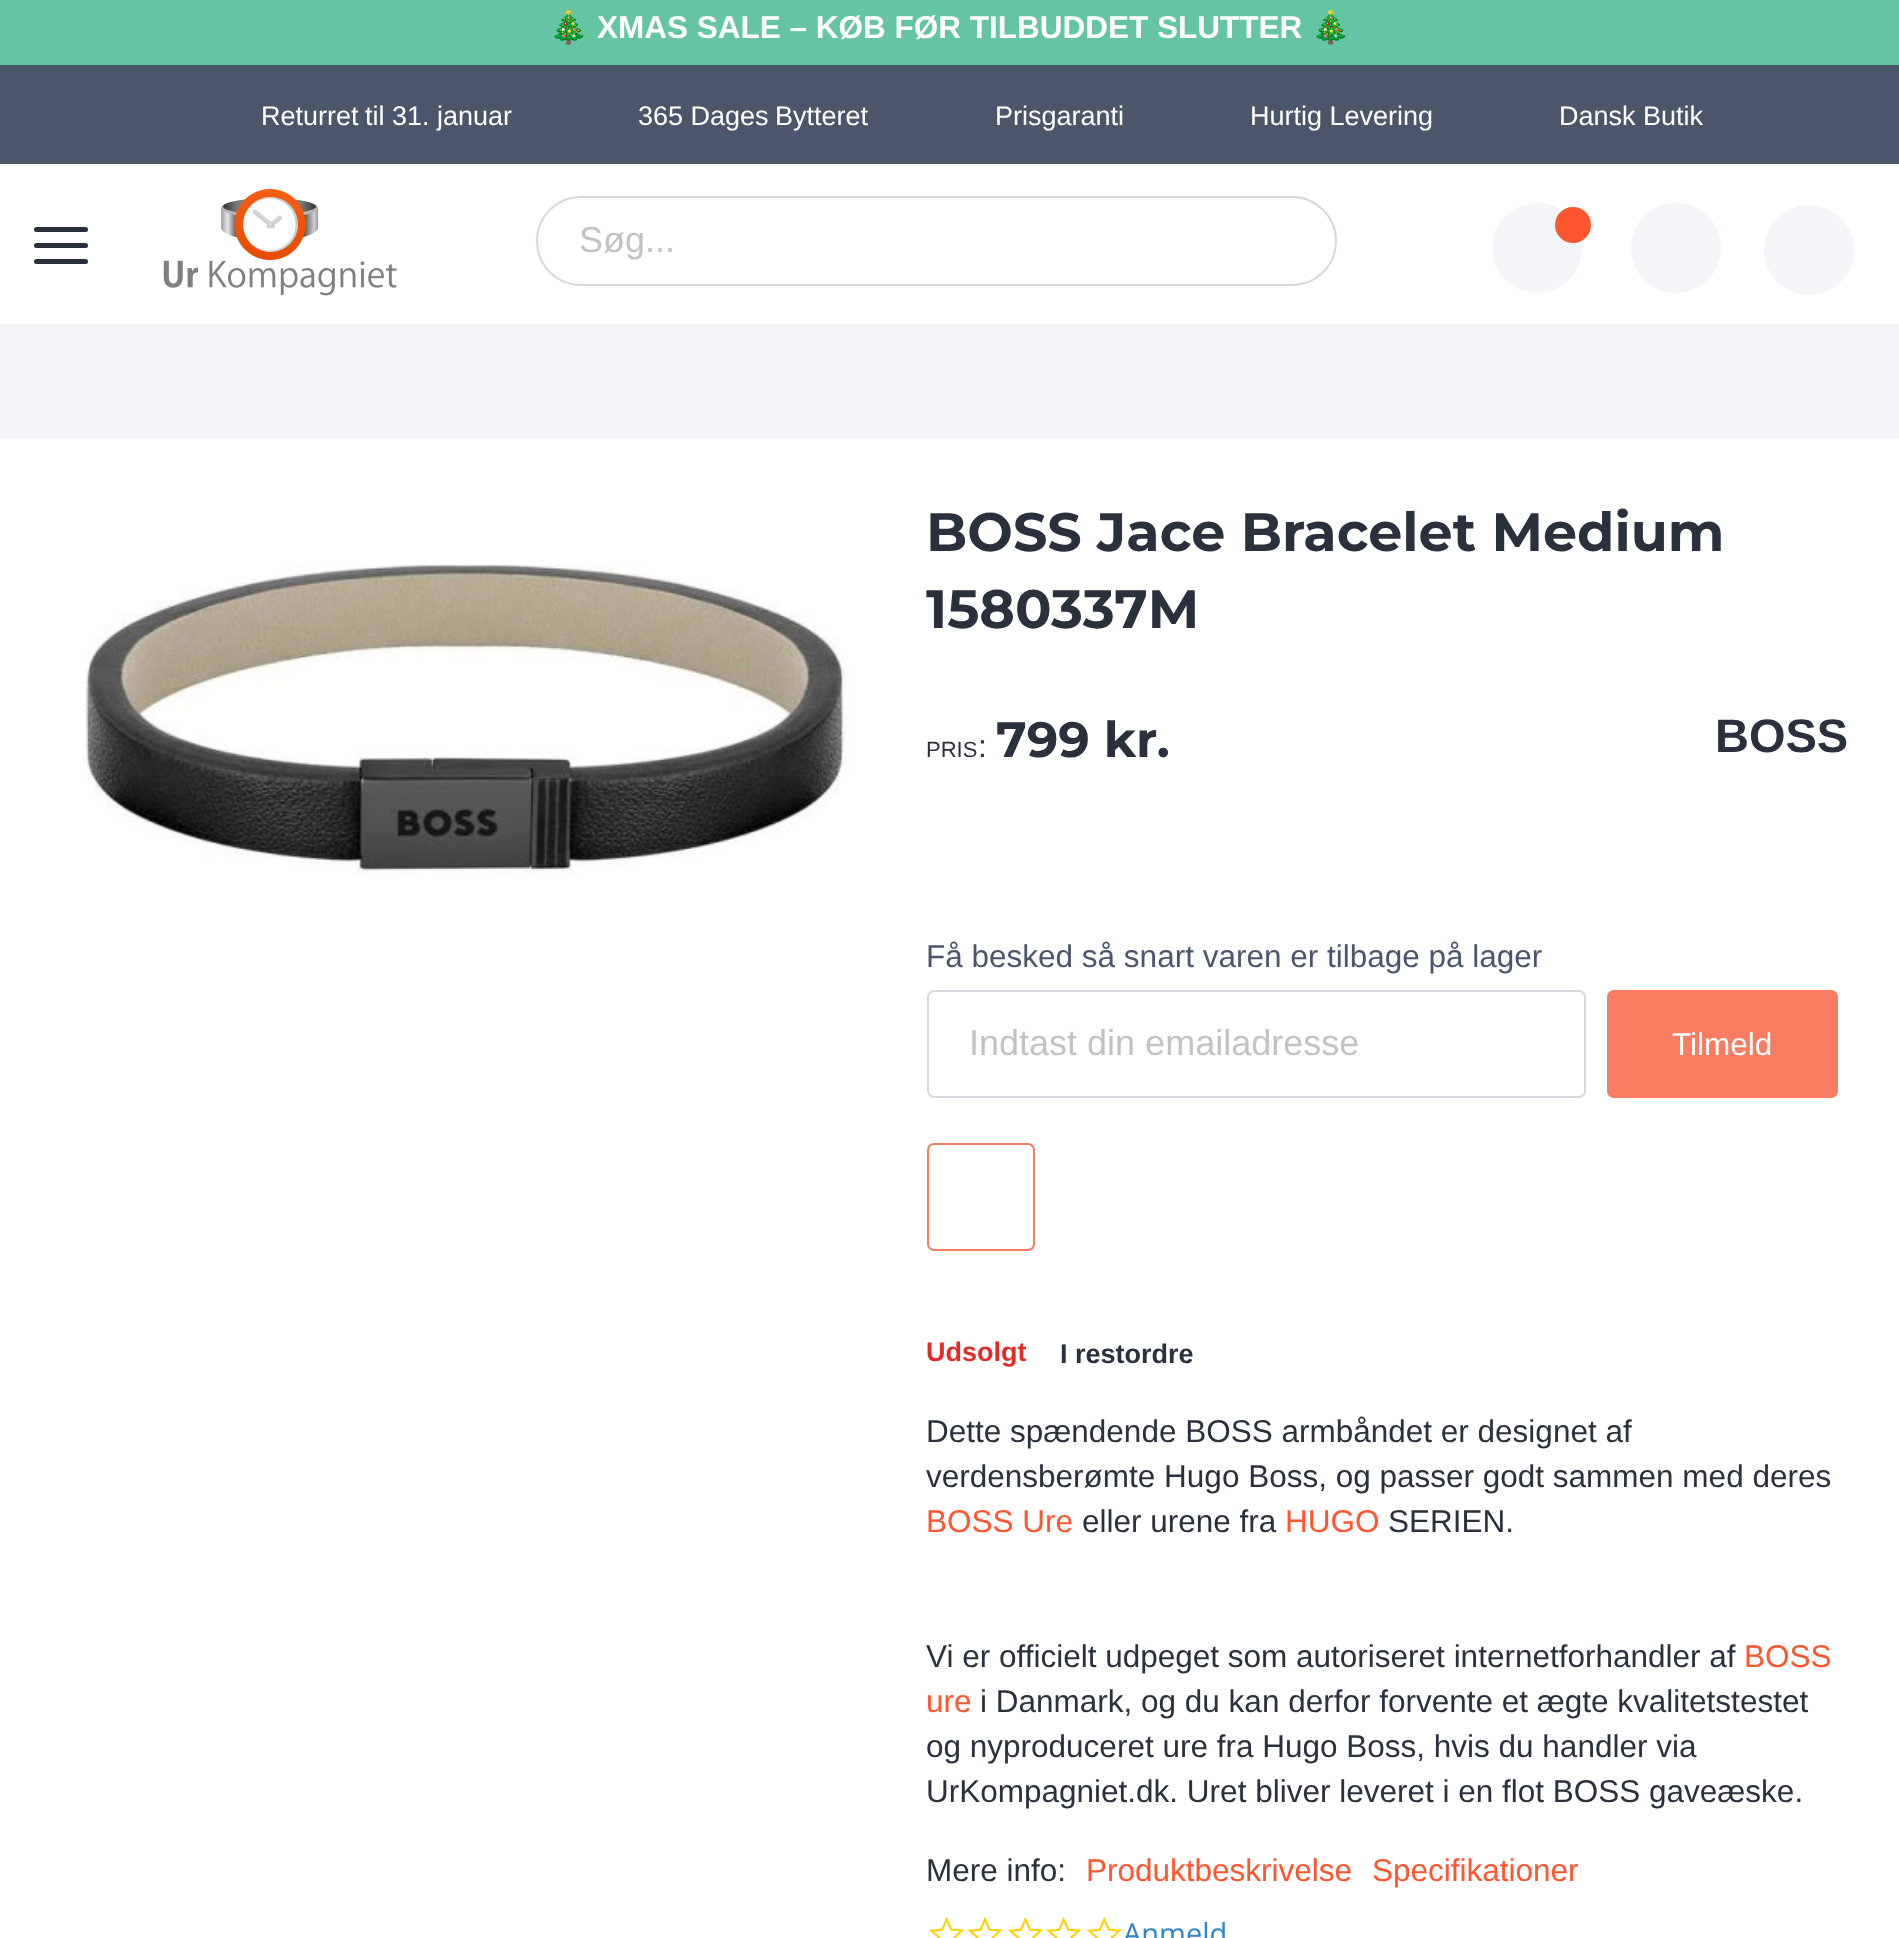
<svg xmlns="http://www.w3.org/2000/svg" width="1899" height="1938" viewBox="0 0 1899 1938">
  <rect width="100%" height="100%" fill="rgb(243,245,249)"/>
  <rect x="0" y="164" width="1899" height="160" fill="rgb(255,255,255)"/>
  <rect x="0" y="0" width="1899" height="65" fill="rgb(100,196,164)"/>
  <text x="549" y="38" font-family="Noto Color Emoji" font-size="31.5" font-weight="bold" fill="rgb(255,255,255)">🎄</text>
  <text x="597" y="38" font-family="Liberation Sans" font-size="31.5" font-weight="bold" fill="rgb(255,255,255)">XMAS SALE – KØB FØR TILBUDDET SLUTTER</text>
  <text x="1311" y="38" font-family="Noto Color Emoji" font-size="31.5" font-weight="bold" fill="rgb(255,255,255)">🎄</text>
  <rect x="0" y="65" width="1899" height="99" fill="rgb(75,86,107)"/>
  <g font-family="Liberation Sans" font-size="27" fill="rgb(255,255,255)">
    <text x="261" y="125">Returret</text>
    <text x="365" y="125">til 31. januar</text>
    <text x="638" y="125">365 Dages</text>
    <text x="775" y="125">Bytteret</text>
    <text x="995" y="125">Prisgaranti</text>
    <text x="1250" y="125">Hurtig Levering</text>
    <text x="1559" y="125">Dansk Butik</text>
  </g>
  <rect x="34" y="243" width="54" height="5" rx="2.5" fill="rgb(42,48,60)"/>
  <rect x="34" y="227" width="54" height="5" rx="2.5" fill="rgb(42,48,60)"/>
  <rect x="34" y="259" width="54" height="5" rx="2.5" fill="rgb(42,48,60)"/>
  <image x="163" y="189" width="234" height="107" href="pic1.png"/>
  <rect x="537" y="197" width="799" height="88" rx="44" fill="none" stroke="rgb(213,217,226)" stroke-width="2"/>
  <text x="579" y="252" font-family="Liberation Sans" font-size="36" fill="rgb(194,194,194)">Søg...</text>
  <circle cx="1537" cy="248" r="45" fill="rgb(243,245,249)"/>
  <circle cx="1573" cy="225" r="18" fill="rgb(255,86,48)"/>
  <circle cx="1676" cy="248" r="45" fill="rgb(243,245,249)"/>
  <circle cx="1809" cy="250" r="45" fill="rgb(243,245,249)"/>
  <rect x="0" y="439" width="1899" height="1499" fill="rgb(255,255,255)"/>
  <image x="82" y="563" width="768" height="312" href="pic2.png"/>
  <g font-family="Montserrat" font-size="54" font-weight="bold" fill="rgb(42,48,60)">
    <text>
      <tspan x="926" y="551">BOSS Jace Bracelet Medium</tspan>
      <tspan x="926" y="628">1580337M</tspan>
    </text>
  </g>
  <text x="926" y="757" font-family="Liberation Sans" font-size="22" fill="rgb(42,48,60)">PRIS</text>
  <text x="978" y="757" font-family="Liberation Sans" font-size="31.5" fill="rgb(42,48,60)">:</text>
  <text x="996" y="757" font-family="Montserrat" font-size="49.5" font-weight="bold" fill="rgb(42,48,60)">799 kr.</text>
  <text x="1715" y="752" font-family="Liberation Sans" font-size="47" font-weight="bold" fill="rgb(42,48,60)">BOSS</text>
  <text x="926" y="967" font-family="Liberation Sans" font-size="31.5" fill="rgb(75,86,107)">Få besked så snart varen er tilbage på lager</text>
  <rect x="928" y="991" width="657" height="106" rx="6" fill="none" stroke="rgb(213,217,226)" stroke-width="2"/>
  <text x="969" y="1055" font-family="Liberation Sans" font-size="36" fill="rgb(194,194,194)">Indtast din emailadresse</text>
  <rect x="1608" y="991" width="229" height="106" rx="6" fill="rgb(247,124,97)" stroke="rgb(247,124,97)" stroke-width="2"/>
  <text x="1672" y="1055" font-family="Liberation Sans" font-size="31.5" fill="rgb(255,255,255)">Tilmeld</text>
  <rect x="928" y="1144" width="106" height="106" rx="6" fill="none" stroke="rgb(247,124,97)" stroke-width="2"/>
  <text x="926" y="1361" font-family="Liberation Sans" font-size="27" font-weight="bold" fill="rgb(224,43,39)">Udsolgt</text>
  <text x="1060" y="1363" font-family="Liberation Sans" font-size="27" font-weight="bold" fill="rgb(42,48,60)">I restordre</text>
  <g font-family="Liberation Sans" font-size="31.5" fill="rgb(42,48,60)">
    <text>
      <tspan x="926" y="1442">Dette spændende BOSS armbåndet er designet af</tspan>
      <tspan x="926" y="1487">verdensberømte Hugo Boss, og passer godt sammen med deres</tspan>
    </text>
  </g>
  <text x="926" y="1532" font-family="Liberation Sans" font-size="31.5" fill="rgb(255,86,48)">BOSS Ure</text>
  <text x="1082" y="1532" font-family="Liberation Sans" font-size="31.5" fill="rgb(42,48,60)">eller urene fra</text>
  <text x="1285" y="1532" font-family="Liberation Sans" font-size="31.5" fill="rgb(255,86,48)">HUGO</text>
  <g font-family="Liberation Sans" font-size="31.5" fill="rgb(42,48,60)">
    <text x="1388" y="1532">SERIEN.</text>
    <text x="926" y="1667">Vi er officielt udpeget som autoriseret internetforhandler af</text>
  </g>
  <g font-family="Liberation Sans" font-size="31.5" fill="rgb(255,86,48)">
    <text x="1744" y="1667">BOSS</text>
    <text x="926" y="1712">ure</text>
  </g>
  <g font-family="Liberation Sans" font-size="31.5" fill="rgb(42,48,60)">
    <text x="980" y="1712">i Danmark, og du kan derfor forvente et ægte kvalitetstestet</text>
    <text>
      <tspan x="926" y="1757">og nyproduceret ure fra Hugo Boss, hvis du handler via</tspan>
      <tspan x="926" y="1802">UrKompagniet.dk. Uret bliver leveret i en flot BOSS gaveæske.</tspan>
    </text>
    <text x="926" y="1881">Mere info:</text>
  </g>
  <g font-family="Liberation Sans" font-size="31.5" fill="rgb(255,86,48)">
    <text x="1086" y="1881">Produktbeskrivelse</text>
    <text x="1372" y="1881">Specifikationer</text>
  </g>
  <image x="929" y="1917" width="36" height="21" href="pic3.png"/>
  <image x="967" y="1917" width="36" height="21" href="pic4.png"/>
  <image x="1008" y="1917" width="36" height="21" href="pic5.png"/>
  <image x="1046" y="1917" width="36" height="21" href="pic3.png"/>
  <image x="1086" y="1917" width="36" height="21" href="pic6.png"/>
  <text x="1123" y="1944" font-family="Open Sans" font-size="29" fill="rgb(48,133,199)">Anmeld</text>
</svg>
